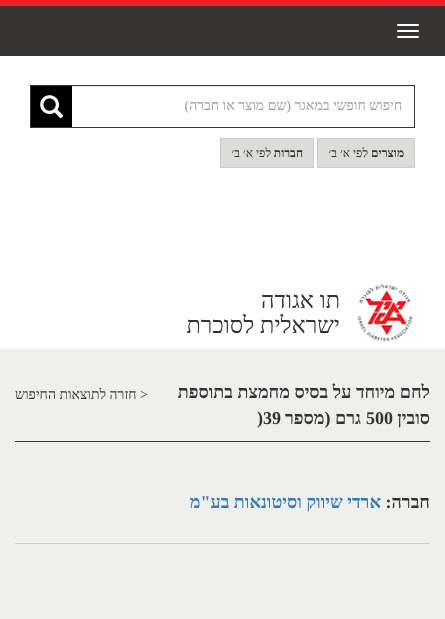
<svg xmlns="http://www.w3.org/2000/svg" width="445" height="619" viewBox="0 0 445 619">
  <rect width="100%" height="100%" fill="rgb(239,239,237)"/>
  <rect x="0" y="6" width="445" height="50" fill="rgb(54,53,52)"/>
  <rect x="0" y="0" width="445" height="6" fill="rgb(238,28,37)"/>
  <rect x="386.5" y="14.5" width="43" height="33" rx="3.5" fill="none" stroke="rgb(51,51,51)"/>
  <rect x="397" y="24" width="22" height="2" rx="1" fill="rgb(255,255,255)"/>
  <rect x="397" y="30" width="22" height="2" rx="1" fill="rgb(255,255,255)"/>
  <rect x="397" y="36" width="22" height="2" rx="1" fill="rgb(255,255,255)"/>
  <rect x="0" y="56" width="445" height="293" fill="rgb(255,255,255)"/>
  <rect x="72" y="86" width="342" height="1" fill="rgb(236,236,236)"/>
  <rect x="30.5" y="85.5" width="384" height="42" fill="none" stroke="rgb(54,53,52)"/>
  <text x="402" y="110" font-family="Liberation Serif" font-size="14" direction="rtl" fill="rgb(153,153,153)">חיפוש חופשי במאגר (שם מוצר או חברה)</text>
  <rect x="31" y="86" width="41" height="41" fill="rgb(0,0,0)"/>
  <image x="40" y="95" width="24" height="24" href="pic1.png"/>
  <rect x="317.5" y="138.5" width="97" height="29" fill="rgb(220,220,219)" stroke="rgb(204,204,204)"/>
  <text x="404" y="157" font-family="Liberation Serif" font-size="12" font-weight="bold" direction="rtl" fill="rgb(51,51,51)">מוצרים</text>
  <text x="368" y="157" font-family="Liberation Serif" font-size="12" direction="rtl" fill="rgb(51,51,51)">לפי א׳ ב׳</text>
  <rect x="220.5" y="138.5" width="93" height="29" fill="rgb(220,220,219)" stroke="rgb(204,204,204)"/>
  <text x="303" y="157" font-family="Liberation Serif" font-size="12" font-weight="bold" direction="rtl" fill="rgb(51,51,51)">חברות</text>
  <text x="271" y="157" font-family="Liberation Serif" font-size="12" direction="rtl" fill="rgb(51,51,51)">לפי א׳ ב׳</text>
  <image x="357" y="284" width="56" height="58" href="pic2.png"/>
  <g font-family="Liberation Serif" font-size="23.5" direction="rtl" fill="rgb(51,51,51)">
    <text>
      <tspan x="340" y="308">תו אגודה</tspan>
      <tspan x="340" y="333">ישראלית לסוכרת</tspan>
    </text>
  </g>
  <rect x="15" y="441" width="415" height="1" fill="rgb(51,51,51)"/>
  <g font-family="Liberation Serif" font-size="18" font-weight="bold" direction="rtl" fill="rgb(51,51,51)">
    <text>
      <tspan x="430" y="398">לחם מיוחד על בסיס מחמצת בתוספת</tspan>
      <tspan x="430" y="424">סובין</tspan>
    </text>
  </g>
  <text x="366" y="424" font-family="Liberation Serif" font-size="18" font-weight="bold" fill="rgb(51,51,51)">500</text>
  <text x="361" y="424" font-family="Liberation Serif" font-size="18" font-weight="bold" direction="rtl" fill="rgb(51,51,51)">גרם (מספר</text>
  <text x="257" y="424" font-family="Liberation Serif" font-size="18" font-weight="bold" fill="rgb(51,51,51)">)39</text>
  <text x="148" y="399" font-family="Liberation Serif" font-size="14" direction="rtl" fill="rgb(51,51,51)">&lt; חזרה לתוצאות החיפוש</text>
  <rect x="15" y="543" width="415" height="1" fill="rgb(204,204,204)"/>
  <text x="430" y="508" font-family="Liberation Serif" font-size="18" font-weight="bold" direction="rtl" fill="rgb(51,51,51)">חברה:</text>
  <text x="381" y="508" font-family="Liberation Serif" font-size="18" font-weight="bold" direction="rtl" fill="rgb(51,122,183)">ארדי שיווק וסיטונאות בע"מ</text>
</svg>
